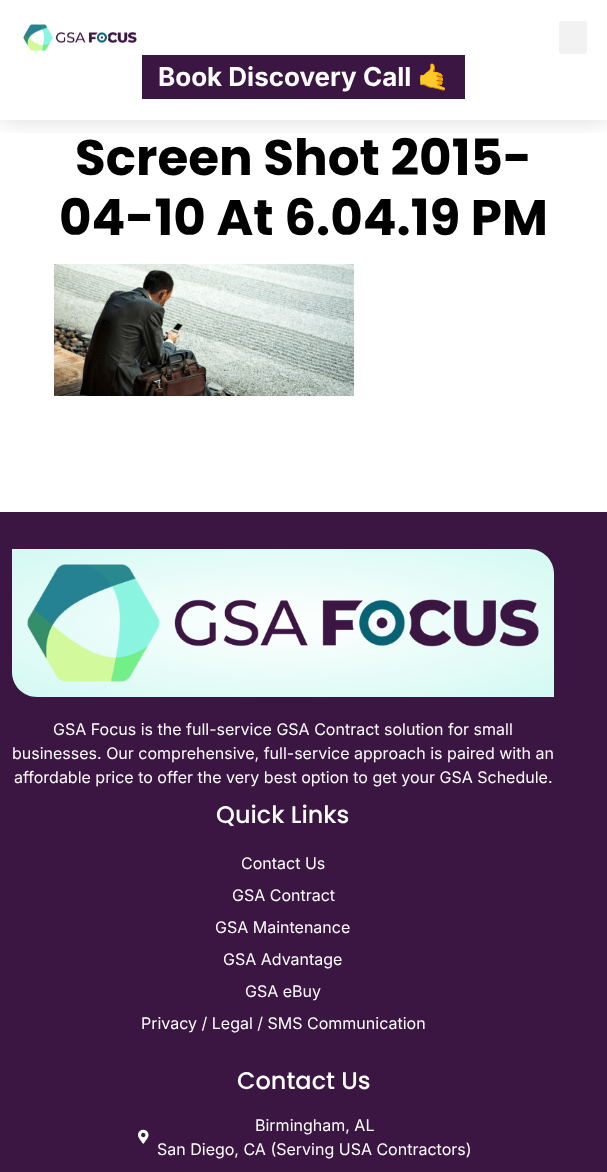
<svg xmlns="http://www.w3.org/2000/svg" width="607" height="1172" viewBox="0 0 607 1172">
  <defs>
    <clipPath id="clip1"><rect x="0" y="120" width="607" height="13"/></clipPath>
    <radialGradient id="g1" gradientUnits="userSpaceOnUse" cx="0" cy="0" r="1" gradientTransform="matrix(383 0 0 105 283 623)"><stop offset="0" stop-color="rgb(255,255,255)"/><stop offset="1" stop-color="rgb(211,249,242)"/></radialGradient>
  </defs>
  <rect width="100%" height="100%" fill="rgb(255,255,255)"/>
  <g clip-path="url(#clip1)">
    <rect x="0" y="0" width="607" height="120" fill="rgba(0,0,0,0.15)" filter="blur(12px)"/>
  </g>
  <image x="23" y="24" width="114" height="27" href="pic1.png"/>
  <rect x="559" y="21" width="28" height="33" rx="3" fill="rgb(242,242,242)"/>
  <rect x="142" y="55" width="323" height="44" fill="rgb(60,22,66)"/>
  <text x="158" y="86" font-family="Inter" font-size="26" font-weight="bold" fill="rgb(255,255,255)">Book Discovery Call</text>
  <text x="417" y="86" font-family="Noto Color Emoji" font-size="26" font-weight="bold" fill="rgb(255,255,255)">🤙</text>
  <g font-family="Poppins" font-size="50" font-weight="bold" fill="rgb(0,0,0)">
    <text x="75" y="175">Screen Shot 2015-</text>
    <text x="59" y="235">04-10 At 6.04.19 PM</text>
  </g>
  <image x="54" y="264" width="300" height="132" href="pic2.png"/>
  <rect x="0" y="512" width="607" height="660" fill="rgb(60,22,66)"/>
  <path d="M12 549H529C543 549 554 560 554 574V697H37C23 697 12 686 12 672Z" fill="url(#g1)"/>
  <image x="27" y="564" width="512" height="118" href="pic3.png"/>
  <g font-family="Inter" font-size="16" fill="rgb(255,255,255)">
    <text x="53" y="735">GSA Focus is the full-service GSA Contract solution for small</text>
    <text x="12" y="759">businesses. Our comprehensive, full-service approach is paired with an</text>
    <text x="14" y="783">affordable price to offer the very best option to get your GSA Schedule.</text>
  </g>
  <text x="216" y="823" font-family="Poppins" font-size="24" font-weight="500" fill="rgb(255,255,255)">Quick Links</text>
  <g font-family="Inter" font-size="16" fill="rgb(255,255,255)">
    <text x="241" y="869">Contact Us</text>
    <text x="232" y="901">GSA Contract</text>
    <text x="215" y="933">GSA Maintenance</text>
    <text x="223" y="965">GSA Advantage</text>
    <text x="245" y="997">GSA eBuy</text>
    <text x="141" y="1029">Privacy / Legal / SMS Communication</text>
  </g>
  <text x="237" y="1089" font-family="Poppins" font-size="24" font-weight="500" fill="rgb(255,255,255)">Contact Us</text>
  <image x="138" y="1129" width="11" height="15" href="pic4.png"/>
  <g font-family="Inter" font-size="16" fill="rgb(255,255,255)">
    <text x="255" y="1131">Birmingham, AL</text>
    <text x="157" y="1155">San Diego, CA (Serving USA Contractors)</text>
  </g>
</svg>
